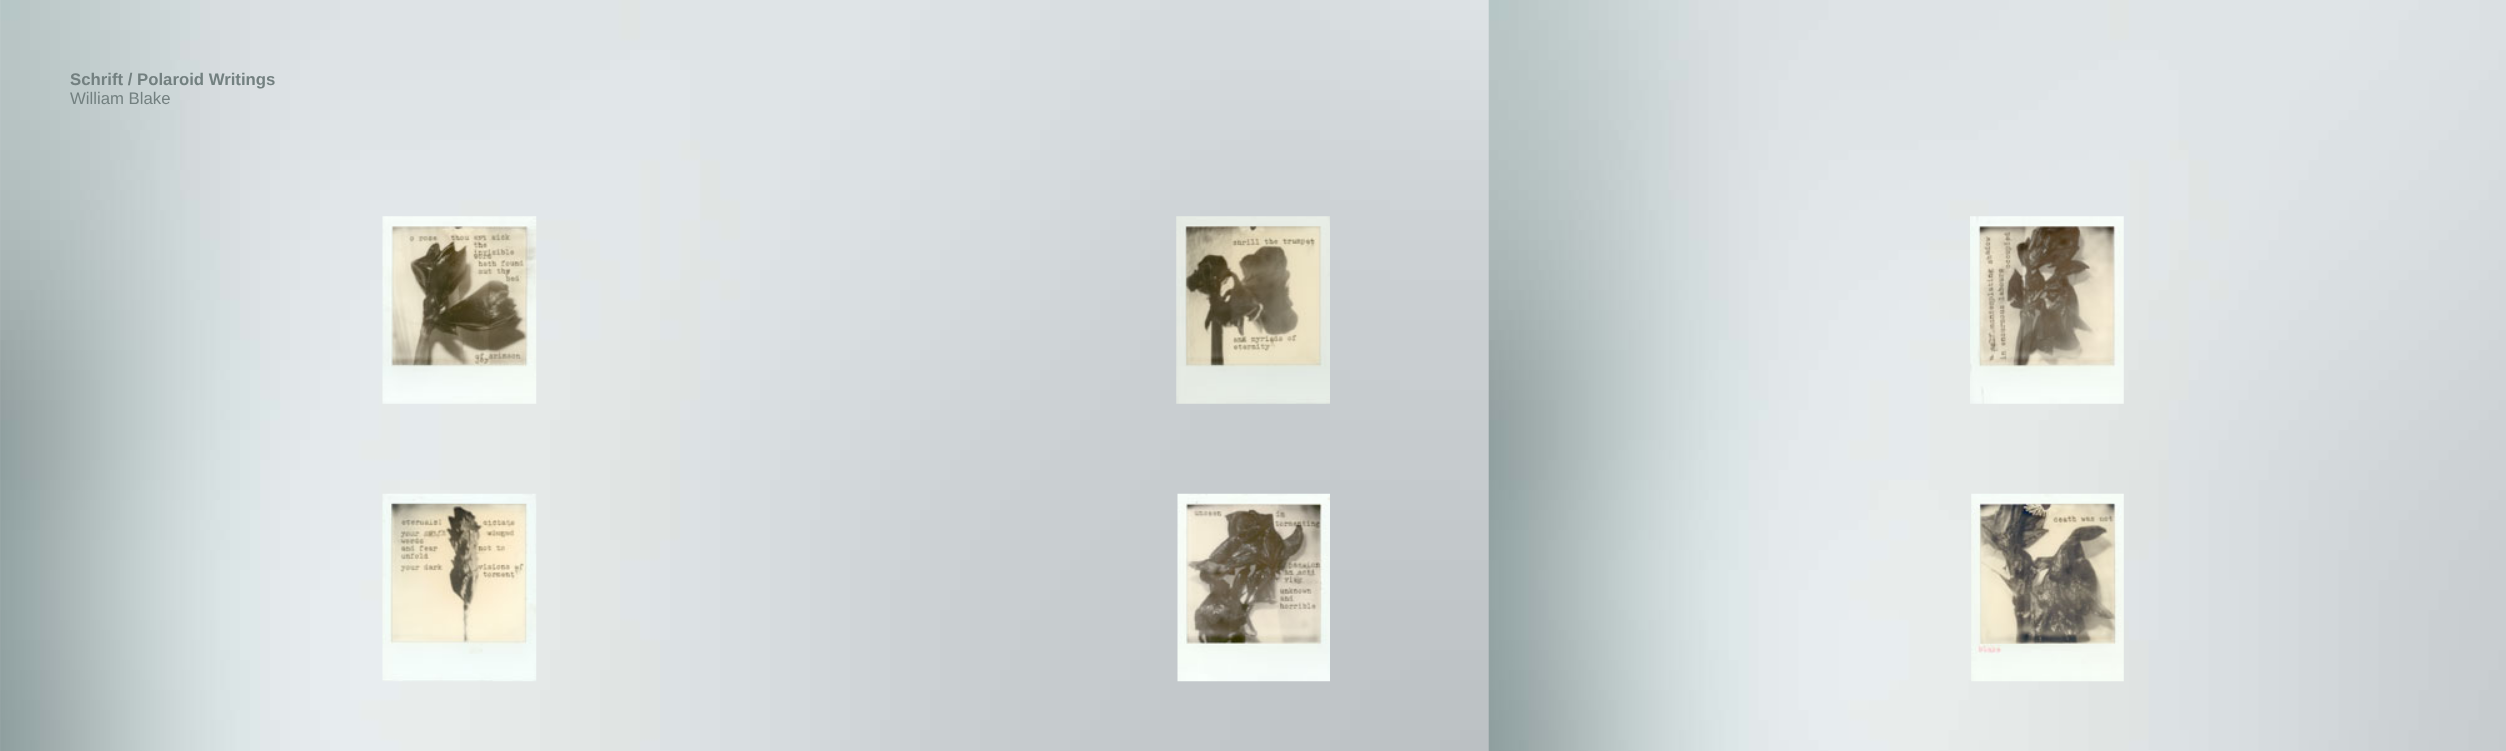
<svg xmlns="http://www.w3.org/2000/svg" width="2506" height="751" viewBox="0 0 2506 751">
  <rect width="100%" height="100%" fill="rgb(255,255,255)"/>
  <image x="0" y="0" width="2506" height="751" href="pic1.png"/>
  <text x="70" y="85" font-family="Liberation Sans" font-size="16.75" font-weight="bold" fill="rgb(115,128,128)">Schrift / Polaroid Writings</text>
  <text x="70" y="104" font-family="Liberation Sans" font-size="16.75" fill="rgb(115,128,128)">William Blake</text>
  <image x="382" y="216" width="155" height="188" href="pic2.png"/>
  <image x="1176" y="216" width="154" height="188" href="pic3.png"/>
  <image x="1970" y="216" width="154" height="188" href="pic4.png"/>
  <image x="382" y="493" width="155" height="189" href="pic5.png"/>
  <image x="1177" y="493" width="153" height="189" href="pic6.png"/>
  <image x="1971" y="493" width="153" height="189" href="pic7.png"/>
</svg>
